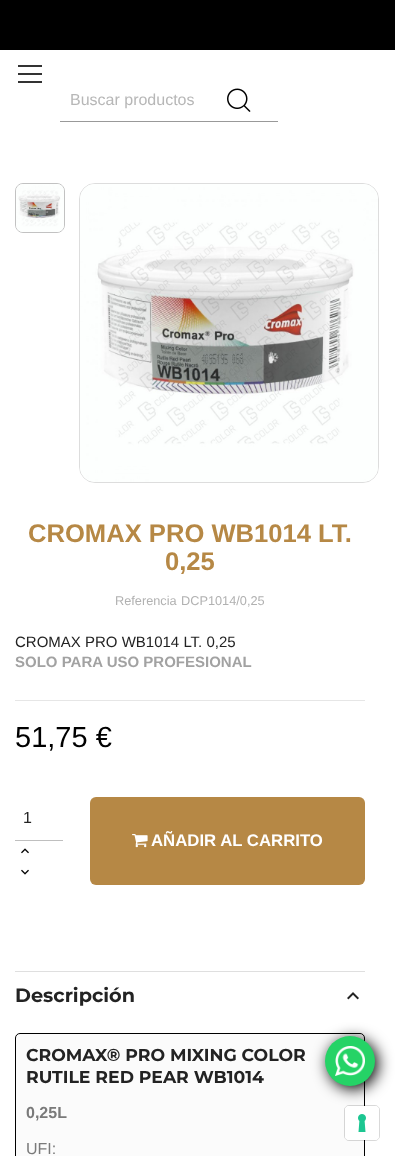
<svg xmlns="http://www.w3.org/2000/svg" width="395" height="1156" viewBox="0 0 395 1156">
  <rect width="100%" height="100%" fill="rgb(255,255,255)"/>
  <rect x="0" y="0" width="395" height="50" fill="rgb(0,0,0)"/>
  <rect x="18" y="65" width="24" height="2" fill="rgb(51,51,51)"/>
  <rect x="18" y="73" width="24" height="2" fill="rgb(51,51,51)"/>
  <rect x="18" y="81" width="24" height="2" fill="rgb(51,51,51)"/>
  <rect x="60" y="121" width="218" height="1" fill="rgb(153,153,153)"/>
  <text x="70" y="105" font-family="Liberation Sans" font-size="16" fill="rgb(183,183,183)">Buscar productos</text>
  <image x="227" y="88" width="24" height="24" href="pic1.png"/>
  <rect x="15.5" y="183.5" width="49" height="49" rx="7.5" fill="none" stroke="rgb(194,194,194)"/>
  <image x="16" y="184" width="48" height="48" href="pic2.png"/>
  <rect x="79.5" y="183.5" width="299" height="299" rx="15.5" fill="none" stroke="rgb(221,221,221)"/>
  <image x="80" y="184" width="298" height="298" href="pic3.png"/>
  <g font-family="Liberation Sans" font-size="25.6" font-weight="bold" fill="rgb(182,136,69)">
    <text x="28" y="542">CROMAX PRO WB1014 LT.</text>
    <text x="165" y="570">0,25</text>
  </g>
  <g font-family="Liberation Sans" font-size="12.75" fill="rgb(177,177,177)">
    <text x="115" y="605">Referencia</text>
    <text x="181" y="605">DCP1014/0,25</text>
  </g>
  <text x="15" y="647" font-family="Liberation Sans" font-size="15" fill="rgb(35,35,35)">CROMAX PRO WB1014 LT. 0,25</text>
  <text x="15" y="667" font-family="Liberation Sans" font-size="15" font-weight="bold" fill="rgb(162,162,162)">SOLO PARA USO PROFESIONAL</text>
  <rect x="15" y="700" width="350" height="1" fill="rgb(230,230,230)"/>
  <text x="15" y="747" font-family="Liberation Sans" font-size="29" fill="rgb(0,0,0)">51,75 €</text>
  <rect x="15" y="840" width="48" height="1" fill="rgb(191,191,191)"/>
  <text x="23" y="823" font-family="Liberation Sans" font-size="16" fill="rgb(35,35,35)">1</text>
  <image x="21" y="848" width="8" height="6" href="pic4.png"/>
  <image x="21" y="869" width="8" height="6" href="pic5.png"/>
  <rect x="90" y="797" width="275" height="88" rx="6" fill="rgb(182,136,69)"/>
  <image x="132" y="834" width="16" height="14" href="pic6.png"/>
  <text x="151" y="846" font-family="Liberation Sans" font-size="16.75" font-weight="bold" fill="rgb(255,255,255)">AÑADIR AL CARRITO</text>
  <rect x="15" y="971" width="350" height="1" fill="rgb(223,223,223)"/>
  <text x="15" y="1002" font-family="Montserrat" font-size="19.25" font-weight="bold" fill="rgb(35,35,35)">Descripción</text>
  <image x="347" y="992" width="12" height="8" href="pic7.png"/>
  <rect x="15.5" y="1033.5" width="349" height="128" rx="4.5" fill="rgb(251,251,251)" stroke="rgb(0,0,0)"/>
  <g font-family="Montserrat" font-size="17.3" font-weight="bold" fill="rgb(35,35,35)">
    <text>
      <tspan x="26" y="1061">CROMAX® PRO MIXING COLOR</tspan>
      <tspan x="26" y="1083">RUTILE RED PEAR WB1014</tspan>
    </text>
  </g>
  <text x="26" y="1118" font-family="Liberation Sans" font-size="16" font-weight="bold" fill="rgb(122,122,122)">0,25L</text>
  <text x="26" y="1154" font-family="Liberation Sans" font-size="16" fill="rgb(122,122,122)">UFI:</text>
  <rect x="328" y="1039" width="50" height="50" rx="25" fill="rgb(0,0,0)" filter="blur(7.5px)"/>
  <circle cx="350" cy="1061" r="25" fill="rgb(37,211,102)"/>
  <image x="335" y="1046" width="30" height="30" href="pic8.png"/>
  <rect x="344.5" y="1105.5" width="35" height="35" rx="4.5" fill="none" stroke="rgba(0,0,0,0.15)"/>
  <rect x="345" y="1106" width="34" height="34" rx="4" fill="rgb(255,255,255)"/>
  <image x="358" y="1114" width="8" height="18" href="pic9.png"/>
</svg>
